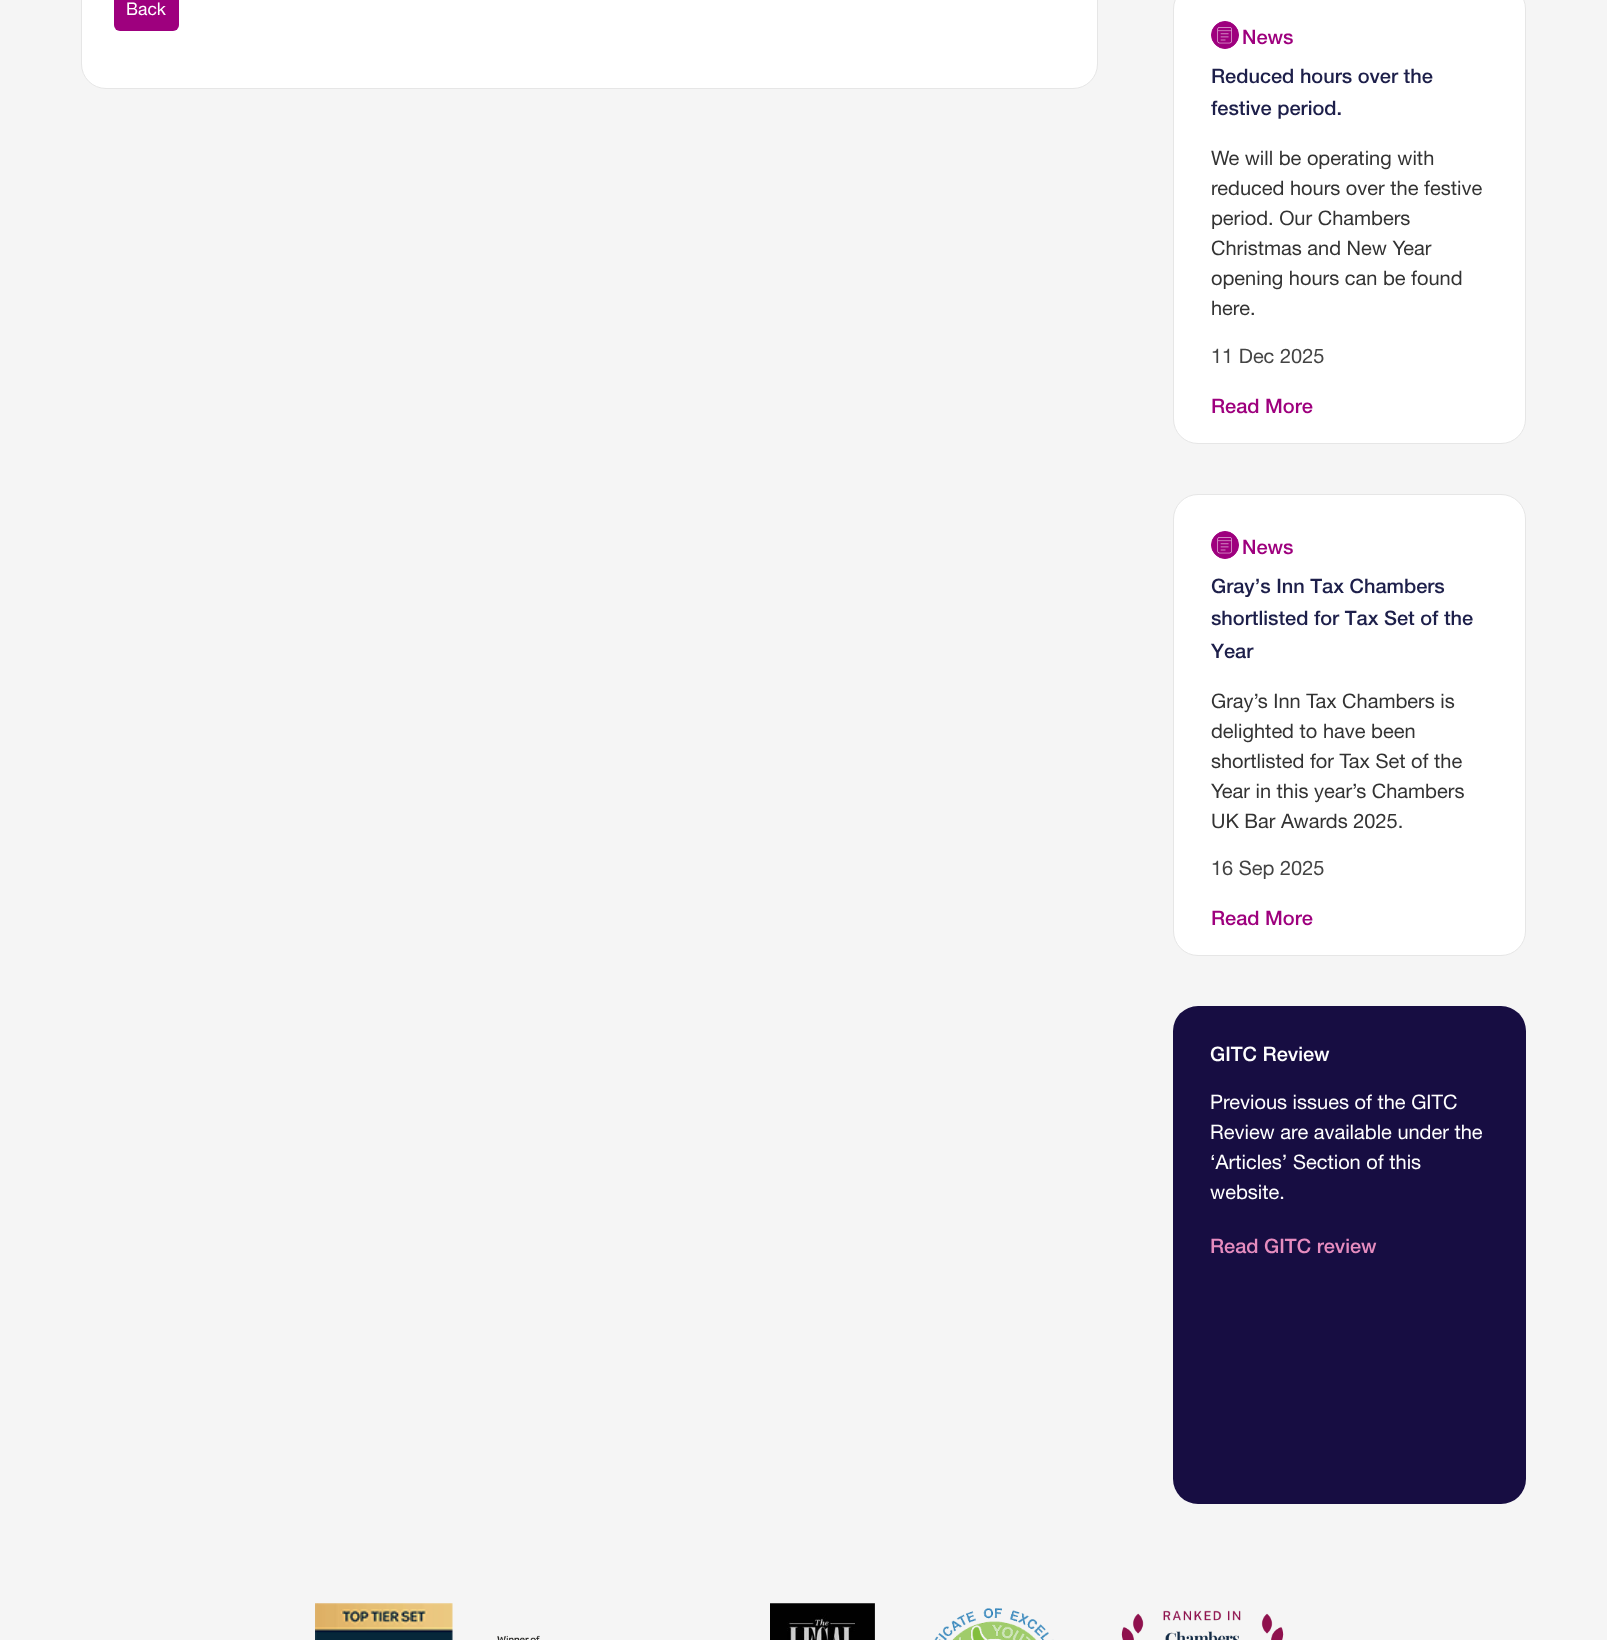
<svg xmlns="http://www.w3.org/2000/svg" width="1607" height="1640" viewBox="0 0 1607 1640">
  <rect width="100%" height="100%" fill="rgb(245,245,245)"/>
  <rect x="81.5" y="-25.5" width="1016" height="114" rx="24.5" fill="rgb(255,255,255)" stroke="rgb(230,230,230)"/>
  <rect x="114" y="-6" width="65" height="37" rx="6" fill="rgb(158,0,126)"/>
  <text x="126" y="15" font-family="Helvetica Neue" font-size="17.5" fill="rgb(255,255,255)">Back</text>
  <rect x="1173.5" y="-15.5" width="352" height="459" rx="24.5" fill="rgb(255,255,255)" stroke="rgb(230,230,230)"/>
  <circle cx="1225" cy="35" r="13.5" fill="rgb(158,0,126)" stroke="rgb(158,0,126)"/>
  <image x="1217" y="27" width="15" height="17" href="pic1.png"/>
  <text x="1242" y="44" font-family="Helvetica Neue" font-size="20" font-weight="500" fill="rgb(158,0,126)">News</text>
  <g font-family="Helvetica Neue" font-size="20" font-weight="500" fill="rgb(29,31,74)">
    <text>
      <tspan x="1211" y="83">Reduced hours over the</tspan>
      <tspan x="1211" y="115">festive period.</tspan>
    </text>
  </g>
  <g font-family="Helvetica Neue" font-size="20" fill="rgb(51,51,51)">
    <text>
      <tspan x="1211" y="165">We will be operating with</tspan>
      <tspan x="1211" y="195">reduced hours over the festive</tspan>
      <tspan x="1211" y="225">period. Our Chambers</tspan>
      <tspan x="1211" y="255">Christmas and New Year</tspan>
      <tspan x="1211" y="285">opening hours can be found</tspan>
      <tspan x="1211" y="315">here.</tspan>
    </text>
  </g>
  <text x="1211" y="363" font-family="Helvetica Neue" font-size="20" fill="rgb(68,68,68)">11 Dec 2025</text>
  <text x="1211" y="413" font-family="Helvetica Neue" font-size="20" font-weight="500" fill="rgb(158,0,126)">Read More</text>
  <rect x="1173.5" y="494.5" width="352" height="461" rx="24.5" fill="rgb(255,255,255)" stroke="rgb(230,230,230)"/>
  <circle cx="1225" cy="545" r="13.5" fill="rgb(158,0,126)" stroke="rgb(158,0,126)"/>
  <image x="1217" y="537" width="15" height="17" href="pic1.png"/>
  <text x="1242" y="554" font-family="Helvetica Neue" font-size="20" font-weight="500" fill="rgb(158,0,126)">News</text>
  <g font-family="Helvetica Neue" font-size="20" font-weight="500" fill="rgb(29,31,74)">
    <text>
      <tspan x="1211" y="593">Gray’s Inn Tax Chambers</tspan>
      <tspan x="1211" y="625">shortlisted for Tax Set of the</tspan>
      <tspan x="1211" y="658">Year</tspan>
    </text>
  </g>
  <g font-family="Helvetica Neue" font-size="20" fill="rgb(51,51,51)">
    <text>
      <tspan x="1211" y="708">Gray’s Inn Tax Chambers is</tspan>
      <tspan x="1211" y="738">delighted to have been</tspan>
      <tspan x="1211" y="768">shortlisted for Tax Set of the</tspan>
      <tspan x="1211" y="798">Year in this year’s Chambers</tspan>
      <tspan x="1211" y="828">UK Bar Awards 2025.</tspan>
    </text>
  </g>
  <text x="1211" y="875" font-family="Helvetica Neue" font-size="20" fill="rgb(68,68,68)">16 Sep 2025</text>
  <text x="1211" y="925" font-family="Helvetica Neue" font-size="20" font-weight="500" fill="rgb(158,0,126)">Read More</text>
  <rect x="1173" y="1006" width="353" height="498" rx="25" fill="rgb(23,13,66)"/>
  <text x="1210" y="1061" font-family="Helvetica Neue" font-size="20" font-weight="500" fill="rgb(255,255,255)">GITC Review</text>
  <g font-family="Helvetica Neue" font-size="20" fill="rgb(255,255,255)">
    <text>
      <tspan x="1210" y="1109">Previous issues of the GITC</tspan>
      <tspan x="1210" y="1139">Review are available under the</tspan>
      <tspan x="1210" y="1169">‘Articles’ Section of this</tspan>
      <tspan x="1210" y="1199">website.</tspan>
    </text>
  </g>
  <text x="1210" y="1253" font-family="Helvetica Neue" font-size="20" font-weight="500" fill="rgb(230,140,191)">Read GITC review</text>
  <image x="315" y="1603" width="138" height="37" href="pic2.png"/>
  <image x="497" y="1635" width="43" height="5" href="pic3.png"/>
  <image x="770" y="1603" width="105" height="37" href="pic4.png"/>
  <image x="934" y="1608" width="120" height="32" href="pic5.png"/>
  <image x="1121" y="1610" width="163" height="30" href="pic6.png"/>
</svg>
